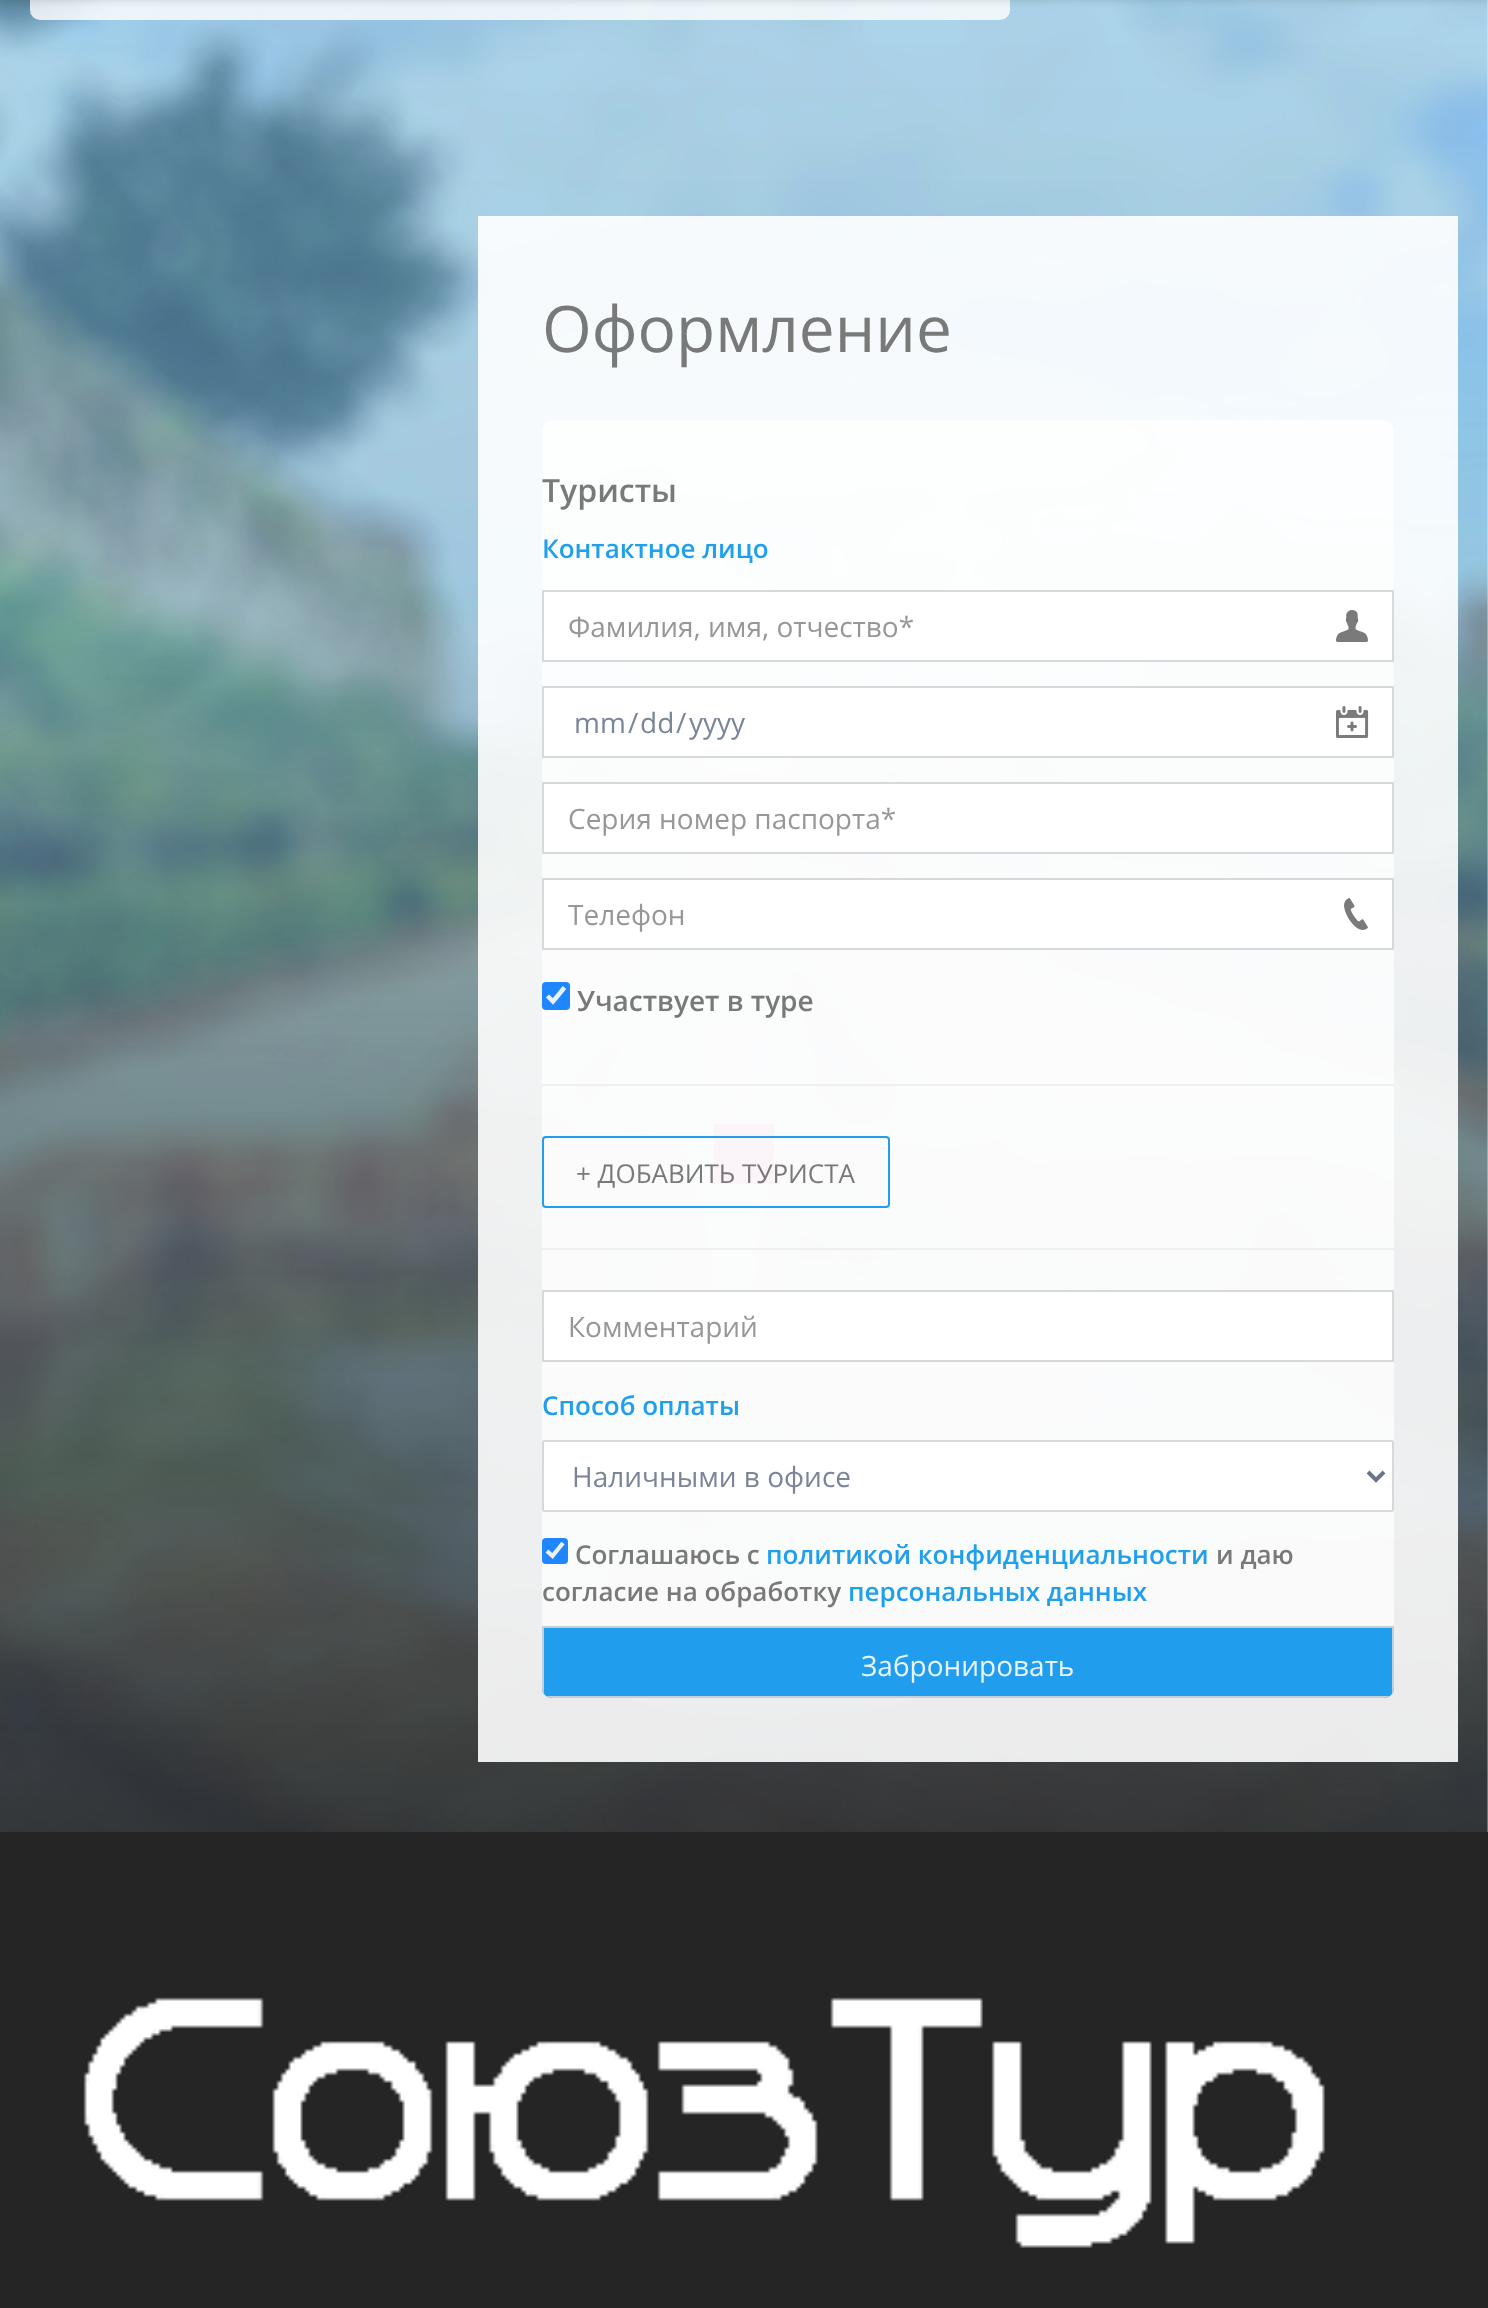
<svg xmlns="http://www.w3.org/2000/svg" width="1488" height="2308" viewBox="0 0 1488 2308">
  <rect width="100%" height="100%" fill="rgb(247,247,247)"/>
  <image x="0" y="0" width="1488" height="1832" href="pic1.png"/>
  <rect x="30" y="-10" width="980" height="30" rx="10" fill="rgba(255,255,255,0.8)"/>
  <rect x="0" y="-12" width="1488" height="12" fill="rgba(8,8,8,0.15)" filter="blur(4px)"/>
  <rect x="478" y="216" width="980" height="1546" fill="rgba(255,255,255,0.9)"/>
  <text x="542" y="352" font-family="Open Sans" font-size="64" fill="rgb(120,121,121)">Оформление</text>
  <rect x="542" y="420" width="852" height="1278" rx="10" fill="rgba(255,255,255,0.72)"/>
  <text x="542" y="502" font-family="Open Sans" font-size="32" font-weight="600" fill="rgb(120,121,121)">Туристы</text>
  <text x="542" y="558" font-family="Open Sans" font-size="26" font-weight="600" fill="rgb(32,159,237)">Контактное лицо</text>
  <rect x="543" y="591" width="850" height="70" fill="rgb(255,255,255)" stroke="rgb(217,217,217)" stroke-width="2"/>
  <text x="568" y="637" font-family="Open Sans" font-size="28" fill="rgb(151,151,151)">Фамилия, имя, отчество*</text>
  <image x="1336" y="610" width="32" height="32" href="pic2.png"/>
  <rect x="543" y="687" width="850" height="70" fill="rgb(255,255,255)" stroke="rgb(217,217,217)" stroke-width="2"/>
  <g font-family="Open Sans" font-size="28" fill="rgb(123,133,153)">
    <text x="574" y="733">mm</text>
    <text x="628" y="733">/</text>
    <text x="640" y="733">dd</text>
    <text x="676" y="733">/</text>
    <text x="689" y="733">yyyy</text>
  </g>
  <image x="1336" y="706" width="33" height="32" href="pic3.png"/>
  <rect x="543" y="783" width="850" height="70" fill="rgb(255,255,255)" stroke="rgb(217,217,217)" stroke-width="2"/>
  <text x="568" y="829" font-family="Open Sans" font-size="28" fill="rgb(151,151,151)">Серия номер паспорта*</text>
  <rect x="543" y="879" width="850" height="70" fill="rgb(255,255,255)" stroke="rgb(217,217,217)" stroke-width="2"/>
  <text x="568" y="925" font-family="Open Sans" font-size="28" fill="rgb(151,151,151)">Телефон</text>
  <image x="1344" y="898" width="24" height="32" href="pic4.png"/>
  <rect x="542" y="982" width="28" height="28" rx="4" fill="rgb(32,134,255)"/>
  <path d="M547.5 996L553 1001.5L564.5 987.5" fill="none" stroke="rgb(233,243,255)" stroke-width="4.5"/>
  <text x="577" y="1011" font-family="Open Sans" font-size="28" font-weight="600" fill="rgb(120,121,121)">Участвует в туре</text>
  <rect x="542" y="1084" width="852" height="2" fill="rgb(239,239,239)"/>
  <rect x="543" y="1137" width="346" height="70" rx="3" fill="none" stroke="rgb(32,159,237)" stroke-width="2"/>
  <text x="576" y="1183" font-family="Open Sans" font-size="26" fill="rgb(120,121,121)">+ ДОБАВИТЬ ТУРИСТА</text>
  <rect x="542" y="1248" width="852" height="2" fill="rgb(239,239,239)"/>
  <rect x="543" y="1291" width="850" height="70" fill="rgb(255,255,255)" stroke="rgb(217,217,217)" stroke-width="2"/>
  <text x="568" y="1337" font-family="Open Sans" font-size="28" fill="rgb(151,151,151)">Комментарий</text>
  <text x="542" y="1415" font-family="Open Sans" font-size="26" font-weight="600" fill="rgb(32,159,237)">Способ оплаты</text>
  <rect x="543" y="1441" width="850" height="70" rx="1" fill="rgb(255,255,255)" stroke="rgb(217,217,217)" stroke-width="2"/>
  <path d="M1368 1472L1376 1480L1384 1472" fill="none" stroke="rgb(106,117,139)" stroke-width="4"/>
  <text x="572" y="1487" font-family="Open Sans" font-size="28" fill="rgb(123,133,153)">Наличными в офисе</text>
  <rect x="542" y="1538" width="26" height="26" rx="4" fill="rgb(32,134,255)"/>
  <path d="M547 1551L552.5 1556L563 1543" fill="none" stroke="rgb(238,239,239)" stroke-width="4.2"/>
  <text x="575" y="1564" font-family="Open Sans" font-size="26" font-weight="600" fill="rgb(120,121,121)">Соглашаюсь с</text>
  <text x="766" y="1564" font-family="Open Sans" font-size="26" font-weight="600" fill="rgb(32,159,237)">политикой конфиденциальности</text>
  <g font-family="Open Sans" font-size="26" font-weight="600" fill="rgb(120,121,121)">
    <text x="1216" y="1564">и даю</text>
    <text x="542" y="1601">согласие на обработку</text>
  </g>
  <text x="848" y="1601" font-family="Open Sans" font-size="26" font-weight="600" fill="rgb(32,159,237)">персональных данных</text>
  <path d="M542 1626H1394V1688C1394 1693.5 1389.5 1698 1384 1698H552C546.5 1698 542 1693.5 542 1688Z" fill="rgba(8,148,235,0.9)"/>
  <path d="M544 1628H1392V1694C1393 1692 1394 1690 1394 1688V1626H542V1688C542 1690 543 1692 544 1694ZM1384 1698C1386 1698 1388 1697 1390 1696H546C548 1697 550 1698 552 1698Z" fill="rgba(213,213,213,0.9)" fill-rule="evenodd"/>
  <text x="861" y="1676" font-family="Open Sans" font-size="28" fill="rgb(233,245,253)">Забронировать</text>
  <rect x="714" y="1124" width="60" height="60" fill="rgba(255,0,127,0.03)"/>
  <rect x="0" y="1832" width="1488" height="476" fill="rgb(37,37,38)"/>
  <image x="83" y="1997" width="1242" height="251" href="pic5.png"/>
</svg>
